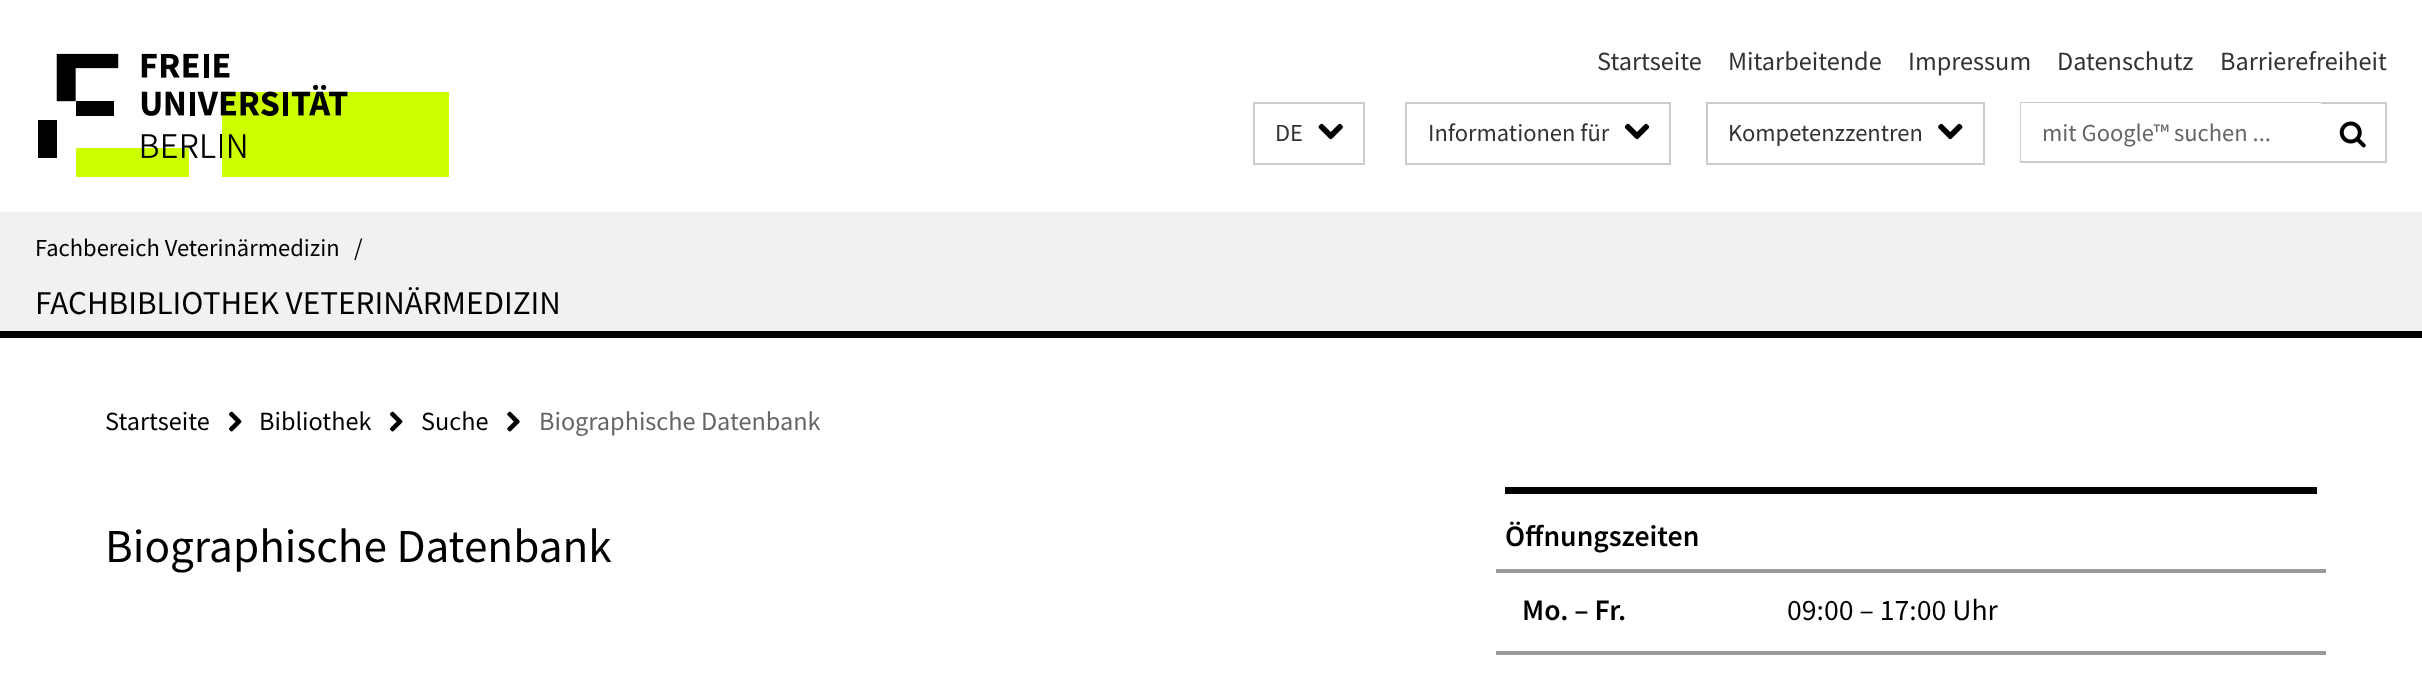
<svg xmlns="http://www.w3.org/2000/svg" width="2422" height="673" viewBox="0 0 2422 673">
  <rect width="100%" height="100%" fill="rgb(255,255,255)"/>
  <image x="38" y="53" width="411" height="124" href="pic1.png"/>
  <g font-family="Source Sans Pro" font-size="26.25" fill="rgb(51,51,51)">
    <text x="1597" y="70">Startseite</text>
    <text x="1728" y="70">Mitarbeitende</text>
    <text x="1908" y="70">Impressum</text>
    <text x="2057" y="70">Datenschutz</text>
    <text x="2220" y="70">Barrierefreiheit</text>
  </g>
  <rect x="1254" y="103" width="110" height="61" fill="none" stroke="rgb(204,204,204)" stroke-width="2"/>
  <text x="1275" y="141" font-family="Source Sans Pro" font-size="24.5" fill="rgb(51,51,51)">DE</text>
  <image x="1318" y="123" width="25" height="17" href="pic2.png"/>
  <rect x="1406" y="103" width="264" height="61" fill="none" stroke="rgb(204,204,204)" stroke-width="2"/>
  <text x="1428" y="141" font-family="Source Sans Pro" font-size="24.5" fill="rgb(51,51,51)">Informationen für</text>
  <image x="1624" y="123" width="26" height="17" href="pic3.png"/>
  <rect x="1707" y="103" width="277" height="61" fill="none" stroke="rgb(204,204,204)" stroke-width="2"/>
  <text x="1728" y="141" font-family="Source Sans Pro" font-size="24.5" fill="rgb(51,51,51)">Kompetenzzentren</text>
  <image x="1938" y="123" width="25" height="17" href="pic4.png"/>
  <rect x="2021" y="103" width="365" height="59" fill="none" stroke="rgb(204,204,204)" stroke-width="2"/>
  <rect x="2021" y="103" width="300" height="58" fill="rgb(255,255,255)"/>
  <text x="2042" y="141" font-family="Source Sans Pro" font-size="24.5" fill="rgb(102,102,102)">mit Google™ suchen ...</text>
  <image x="2339" y="121" width="27" height="27" href="pic5.png"/>
  <rect x="0" y="212" width="2422" height="119" fill="rgb(241,241,241)"/>
  <g font-family="Source Sans Pro" font-size="24.5" fill="rgb(0,0,0)">
    <text x="35" y="256">Fachbereich Veterinärmedizin</text>
    <text x="354" y="256">/</text>
  </g>
  <text x="35" y="314" font-family="Source Sans Pro" font-size="33.25" fill="rgb(0,0,0)">FACHBIBLIOTHEK VETERINÄRMEDIZIN</text>
  <rect x="0" y="331" width="2422" height="7" fill="rgb(0,0,0)"/>
  <text x="105" y="430" font-family="Source Sans Pro" font-size="26.25" fill="rgb(0,0,0)">Startseite</text>
  <image x="229" y="411" width="13" height="21" href="pic6.png"/>
  <text x="259" y="430" font-family="Source Sans Pro" font-size="26.25" fill="rgb(0,0,0)">Bibliothek</text>
  <image x="390" y="411" width="13" height="21" href="pic6.png"/>
  <text x="421" y="430" font-family="Source Sans Pro" font-size="26.25" fill="rgb(0,0,0)">Suche</text>
  <image x="507" y="411" width="13" height="21" href="pic7.png"/>
  <text x="539" y="430" font-family="Source Sans Pro" font-size="26.25" fill="rgb(102,102,102)">Biographische Datenbank</text>
  <text x="105" y="562" font-family="Source Sans Pro" font-size="47.25" fill="rgb(0,0,0)">Biographische Datenbank</text>
  <rect x="1505" y="487" width="812" height="7" fill="rgb(0,0,0)"/>
  <text x="1505" y="546" font-family="Source Sans Pro" font-size="29.75" font-weight="600" fill="rgb(0,0,0)">Öffnungszeiten</text>
  <rect x="1496" y="569" width="830" height="4" fill="rgb(153,153,153)"/>
  <rect x="1496" y="651" width="830" height="4" fill="rgb(153,153,153)"/>
  <text x="1522" y="620" font-family="Source Sans Pro" font-size="29.75" font-weight="600" fill="rgb(0,0,0)">Mo. – Fr.</text>
  <text x="1787" y="620" font-family="Source Sans Pro" font-size="29.75" fill="rgb(0,0,0)">09:00 – 17:00 Uhr</text>
</svg>
